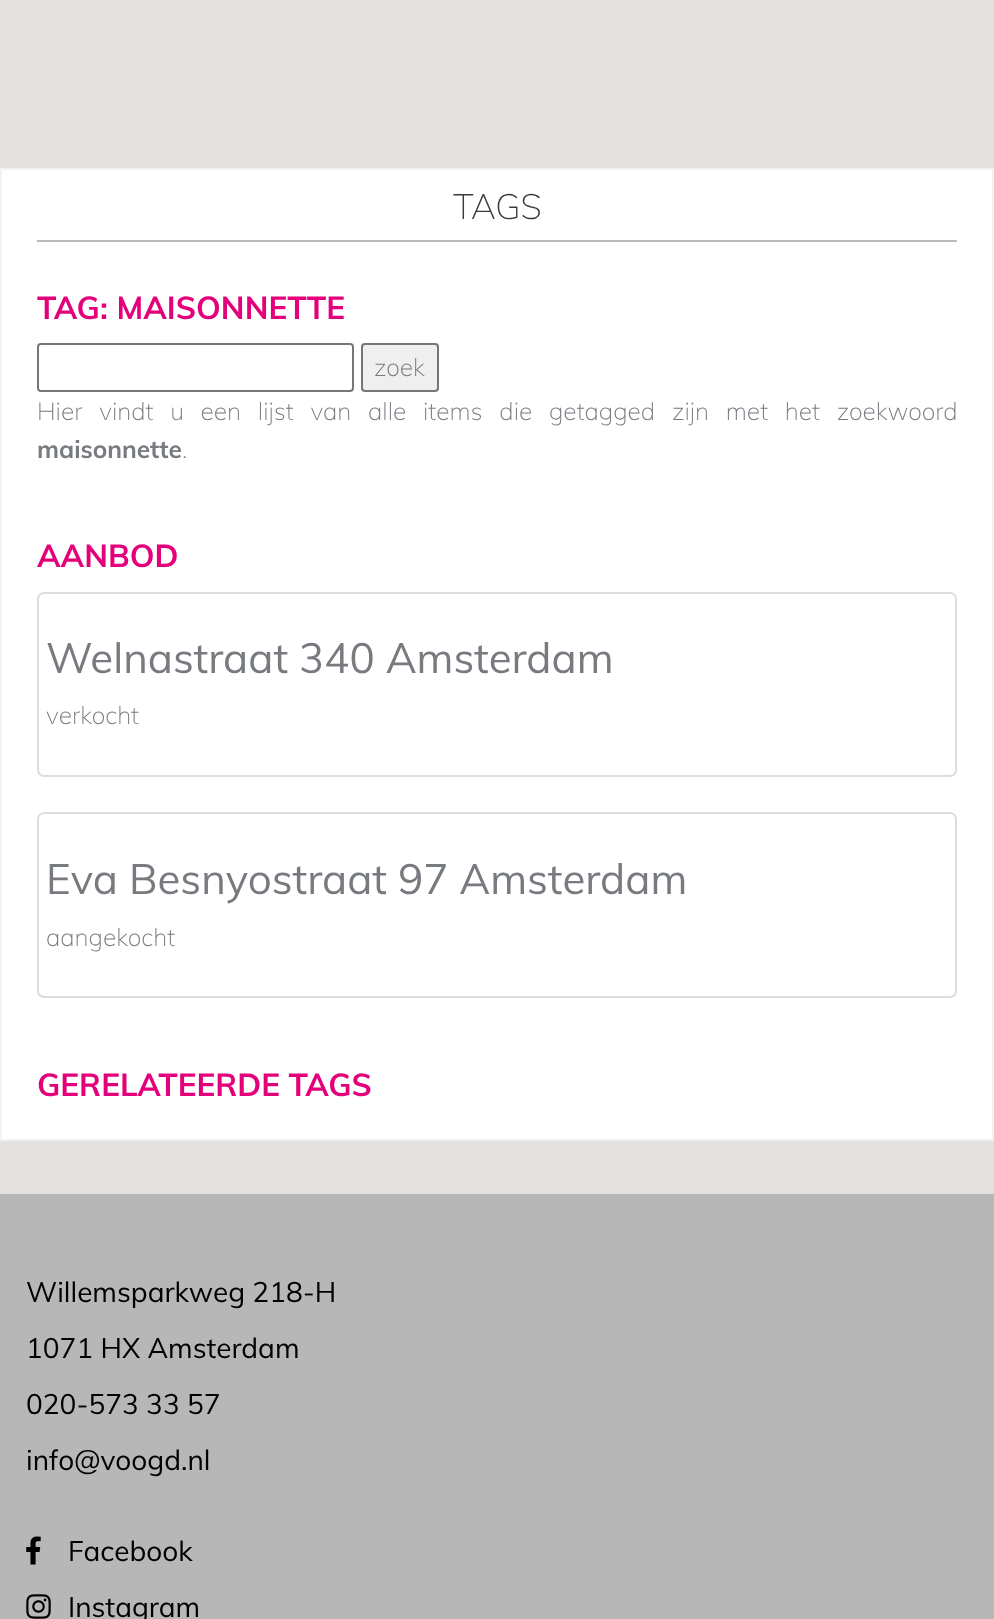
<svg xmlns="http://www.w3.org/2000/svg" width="994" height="1619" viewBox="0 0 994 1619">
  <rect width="100%" height="100%" fill="rgb(227,224,224)"/>
  <rect x="1" y="169" width="992" height="971" fill="rgb(255,255,255)" stroke="rgb(243,241,241)" stroke-width="2"/>
  <rect x="37" y="240" width="920" height="2" fill="rgb(188,188,188)"/>
  <text x="453" y="219" font-family="Muli" font-size="35" font-weight="200" fill="rgb(59,58,58)">TAGS</text>
  <text x="37" y="319" font-family="Muli" font-size="31.5" font-weight="bold" fill="rgb(227,0,122)">TAG: MAISONNETTE</text>
  <rect x="38" y="344" width="315" height="47" rx="3" fill="none" stroke="rgb(118,118,118)" stroke-width="2"/>
  <rect x="362" y="344" width="76" height="47" rx="3" fill="rgb(239,239,239)" stroke="rgb(118,118,118)" stroke-width="2"/>
  <g font-family="Muli" font-size="24.5" font-weight="200" fill="rgb(119,122,127)">
    <text x="374" y="376">zoek</text>
    <text x="37" y="420" word-spacing="10.6">Hier vindt u een lijst van alle items die getagged zijn met het zoekwoord</text>
  </g>
  <text x="37" y="458" font-family="Muli" font-size="24.5" font-weight="bold" fill="rgb(119,122,127)">maisonnette</text>
  <text x="182" y="458" font-family="Muli" font-size="24.5" font-weight="200" fill="rgb(119,122,127)">.</text>
  <text x="37" y="567" font-family="Muli" font-size="31.5" font-weight="bold" fill="rgb(227,0,122)">AANBOD</text>
  <rect x="38" y="593" width="918" height="183" rx="6" fill="none" stroke="rgb(221,221,221)" stroke-width="2"/>
  <text x="46" y="673" font-family="Muli" font-size="42" fill="rgb(119,122,127)">Welnastraat 340 Amsterdam</text>
  <text x="46" y="724" font-family="Muli" font-size="24.5" font-weight="200" fill="rgb(119,122,127)">verkocht</text>
  <rect x="38" y="813" width="918" height="184" rx="6" fill="none" stroke="rgb(221,221,221)" stroke-width="2"/>
  <text x="46" y="894" font-family="Muli" font-size="42" fill="rgb(119,122,127)">Eva Besnyostraat 97 Amsterdam</text>
  <text x="46" y="946" font-family="Muli" font-size="24.5" font-weight="200" fill="rgb(119,122,127)">aangekocht</text>
  <text x="37" y="1096" font-family="Muli" font-size="31.5" font-weight="bold" fill="rgb(227,0,122)">GERELATEERDE TAGS</text>
  <rect x="0" y="1194" width="994" height="425" fill="rgb(183,183,183)"/>
  <g font-family="Muli" font-size="28" fill="rgb(0,0,0)">
    <text x="26" y="1302">Willemsparkweg 218-H</text>
    <text x="26" y="1358">1071 HX Amsterdam</text>
    <text x="26" y="1414">020-573 33 57</text>
    <text x="26" y="1470">info@voogd.nl</text>
  </g>
  <image x="26" y="1536" width="15" height="29" href="pic1.png"/>
  <text x="68" y="1561" font-family="Muli" font-size="28" fill="rgb(0,0,0)">Facebook</text>
  <image x="26" y="1594" width="25" height="25" href="pic2.png"/>
  <text x="68" y="1617" font-family="Muli" font-size="28" fill="rgb(0,0,0)">Instagram</text>
</svg>
